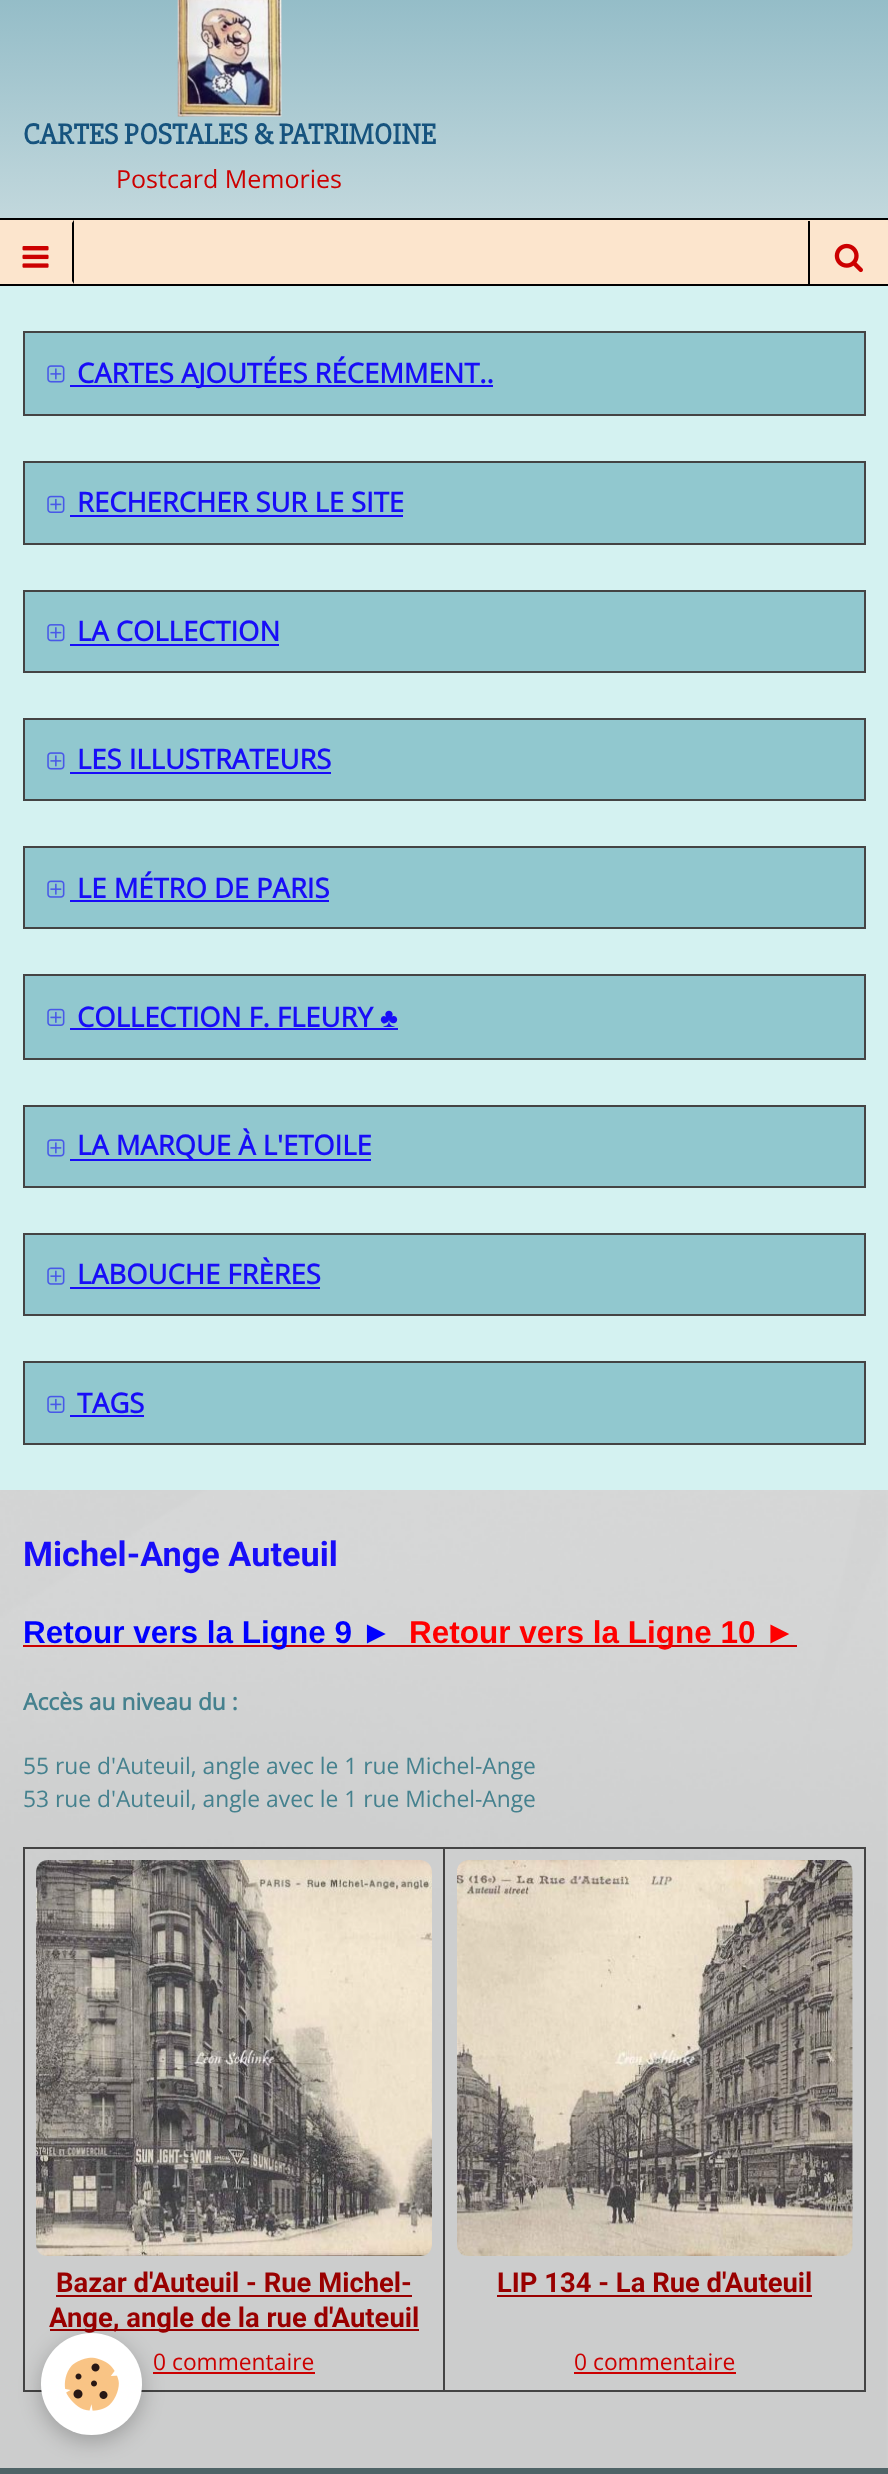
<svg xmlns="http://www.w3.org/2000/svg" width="888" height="2474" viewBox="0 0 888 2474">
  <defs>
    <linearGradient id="g1" gradientUnits="userSpaceOnUse" x1="444" y1="-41" x2="444" y2="286"><stop offset="0" stop-color="rgb(140,184,196)"/><stop offset="1" stop-color="rgb(208,224,227)"/></linearGradient>
  </defs>
  <rect width="100%" height="100%" fill="rgb(244,245,245)"/>
  <image x="0" y="1490" width="888" height="978" href="pic1.png"/>
  <rect x="0" y="0" width="888" height="218" fill="url(#g1)"/>
  <image x="177" y="0" width="105" height="117" href="pic2.png"/>
  <text x="23" y="144" font-family="'Slabo 27px'" font-size="29.6" font-weight="bold" fill="rgb(22,83,126)">CARTES POSTALES &amp; PATRIMOINE</text>
  <text x="116" y="188" font-family="Open Sans" font-size="25" fill="rgb(204,0,0)">Postcard Memories</text>
  <rect x="0" y="220" width="888" height="64" fill="rgb(252,229,205)"/>
  <rect x="0" y="218" width="888" height="2" fill="rgb(0,0,0)"/>
  <rect x="0" y="284" width="888" height="2" fill="rgb(0,0,0)"/>
  <path d="M74 220V284L72 281V223Z" fill="rgb(0,0,0)"/>
  <image x="22" y="246" width="27" height="22" href="pic3.png"/>
  <rect x="808" y="221" width="2" height="63" fill="rgb(0,0,0)"/>
  <image x="834" y="243" width="29" height="30" href="pic4.png"/>
  <rect x="0" y="286" width="888" height="1204" fill="rgb(212,242,241)"/>
  <rect x="24" y="332" width="841" height="83" fill="rgb(145,200,207)" stroke="rgb(68,68,68)" stroke-width="2"/>
  <image x="47" y="365" width="18" height="18" href="pic5.png"/>
  <rect x="70" y="385" width="423" height="2" fill="rgb(24,13,248)"/>
  <text x="77" y="383" font-family="Open Sans" font-size="27.4" font-weight="bold" fill="rgb(24,13,248)">CARTES AJOUTÉES RÉCEMMENT..</text>
  <rect x="24" y="462" width="841" height="82" fill="rgb(145,200,207)" stroke="rgb(68,68,68)" stroke-width="2"/>
  <image x="47" y="495" width="18" height="18" href="pic6.png"/>
  <text x="77" y="512" font-family="Open Sans" font-size="27.4" font-weight="bold" fill="rgb(24,13,248)">RECHERCHER SUR LE SITE</text>
  <rect x="70" y="515" width="333" height="2" fill="rgb(24,13,248)"/>
  <rect x="24" y="591" width="841" height="81" fill="rgb(145,200,207)" stroke="rgb(68,68,68)" stroke-width="2"/>
  <image x="47" y="624" width="18" height="18" href="pic7.png"/>
  <text x="77" y="641" font-family="Open Sans" font-size="27.4" font-weight="bold" fill="rgb(24,13,248)">LA COLLECTION</text>
  <rect x="70" y="644" width="209" height="2" fill="rgb(24,13,248)"/>
  <rect x="24" y="719" width="841" height="81" fill="rgb(145,200,207)" stroke="rgb(68,68,68)" stroke-width="2"/>
  <image x="47" y="752" width="18" height="18" href="pic5.png"/>
  <text x="77" y="769" font-family="Open Sans" font-size="27.4" font-weight="bold" fill="rgb(24,13,248)">LES ILLUSTRATEURS</text>
  <rect x="70" y="772" width="261" height="2" fill="rgb(24,13,248)"/>
  <rect x="24" y="847" width="841" height="81" fill="rgb(145,200,207)" stroke="rgb(68,68,68)" stroke-width="2"/>
  <image x="47" y="880" width="18" height="18" href="pic8.png"/>
  <text x="77" y="898" font-family="Open Sans" font-size="27.4" font-weight="bold" fill="rgb(24,13,248)">LE MÉTRO DE PARIS</text>
  <rect x="70" y="900" width="259" height="2" fill="rgb(24,13,248)"/>
  <rect x="24" y="975" width="841" height="84" fill="rgb(145,200,207)" stroke="rgb(68,68,68)" stroke-width="2"/>
  <image x="47" y="1008" width="18" height="18" href="pic6.png"/>
  <text x="77" y="1027" font-family="Open Sans" font-size="27.4" font-weight="bold" fill="rgb(24,13,248)">COLLECTION F. FLEURY</text>
  <text x="380" y="1027" font-family="Liberation Serif" font-size="27.4" font-weight="bold" fill="rgb(24,13,248)">♣</text>
  <rect x="70" y="1028" width="328" height="2" fill="rgb(24,13,248)"/>
  <rect x="24" y="1106" width="841" height="81" fill="rgb(145,200,207)" stroke="rgb(68,68,68)" stroke-width="2"/>
  <image x="47" y="1139" width="18" height="18" href="pic5.png"/>
  <rect x="70" y="1159" width="301" height="2" fill="rgb(24,13,248)"/>
  <text x="77" y="1155" font-family="Open Sans" font-size="27.4" font-weight="bold" fill="rgb(24,13,248)">LA MARQUE À L'ETOILE</text>
  <rect x="24" y="1234" width="841" height="81" fill="rgb(145,200,207)" stroke="rgb(68,68,68)" stroke-width="2"/>
  <image x="47" y="1267" width="18" height="18" href="pic8.png"/>
  <text x="77" y="1284" font-family="Open Sans" font-size="27.4" font-weight="bold" fill="rgb(24,13,248)">LABOUCHE FRÈRES</text>
  <rect x="70" y="1287" width="250" height="2" fill="rgb(24,13,248)"/>
  <rect x="24" y="1362" width="841" height="82" fill="rgb(145,200,207)" stroke="rgb(68,68,68)" stroke-width="2"/>
  <image x="47" y="1395" width="18" height="18" href="pic6.png"/>
  <text x="77" y="1413" font-family="Open Sans" font-size="27.4" font-weight="bold" fill="rgb(24,13,248)">TAGS</text>
  <rect x="70" y="1415" width="74" height="2" fill="rgb(24,13,248)"/>
  <text x="23" y="1566" font-family="Roboto" font-size="34.25" font-weight="bold" fill="rgb(24,13,248)">Michel-Ange Auteuil</text>
  <rect x="23" y="1645" width="774" height="2" fill="rgb(204,0,0)"/>
  <text x="23" y="1643" font-family="Liberation Sans" font-size="31.5" font-weight="bold" fill="rgb(0,0,255)">Retour vers la Ligne 9 ►</text>
  <text x="409" y="1643" font-family="Liberation Sans" font-size="31.5" font-weight="bold" fill="rgb(255,0,0)">Retour vers la Ligne 10 ►</text>
  <text x="23" y="1710" font-family="Open Sans" font-size="22.8" font-weight="bold" fill="rgb(69,129,142)">Accès au niveau du :</text>
  <g font-family="Open Sans" font-size="22.8" fill="rgb(69,129,142)">
    <text>
      <tspan x="23" y="1774">55 rue d'Auteuil, angle avec le 1 rue Michel-Ange</tspan>
      <tspan x="23" y="1807">53 rue d'Auteuil, angle avec le 1 rue Michel-Ange</tspan>
    </text>
  </g>
  <rect x="23" y="1847" width="2" height="545" fill="rgb(68,68,68)"/>
  <rect x="25" y="1847" width="841" height="2" fill="rgb(68,68,68)"/>
  <rect x="443" y="1847" width="2" height="545" fill="rgb(68,68,68)"/>
  <rect x="25" y="2390" width="421" height="2" fill="rgb(68,68,68)"/>
  <image x="36" y="1860" width="396" height="396" href="pic9.png"/>
  <text x="56" y="2292" font-family="Roboto" font-size="27.4" font-weight="bold" fill="rgb(153,0,0)">Bazar d'Auteuil - Rue Michel-</text>
  <rect x="56" y="2295" width="356" height="2" fill="rgb(153,0,0)"/>
  <rect x="50" y="2329" width="369" height="2" fill="rgb(153,0,0)"/>
  <text x="49" y="2327" font-family="Roboto" font-size="27.4" font-weight="bold" fill="rgb(153,0,0)">Ange, angle de la rue d'Auteuil</text>
  <text x="153" y="2370" font-family="Open Sans" font-size="22.8" fill="rgb(204,0,0)">0 commentaire</text>
  <rect x="153" y="2372" width="162" height="2" fill="rgb(204,0,0)"/>
  <rect x="864" y="1847" width="2" height="545" fill="rgb(68,68,68)"/>
  <rect x="446" y="2390" width="420" height="2" fill="rgb(68,68,68)"/>
  <image x="457" y="1860" width="396" height="396" href="pic10.png"/>
  <text x="497" y="2292" font-family="Roboto" font-size="27.4" font-weight="bold" fill="rgb(153,0,0)">LIP 134 - La Rue d'Auteuil</text>
  <rect x="497" y="2295" width="315" height="2" fill="rgb(153,0,0)"/>
  <text x="574" y="2370" font-family="Open Sans" font-size="22.8" fill="rgb(204,0,0)">0 commentaire</text>
  <rect x="574" y="2372" width="162" height="2" fill="rgb(204,0,0)"/>
  <rect x="0" y="2468" width="888" height="6" fill="rgb(79,100,103)"/>
  <rect x="41" y="2340" width="101" height="101" rx="50.5" fill="rgba(0,0,0,0.24)" filter="blur(11px)"/>
  <rect x="41" y="2333" width="101" height="102" rx="50.5" fill="rgb(255,255,255)"/>
  <image x="64" y="2357" width="55" height="54" href="pic11.png"/>
</svg>
